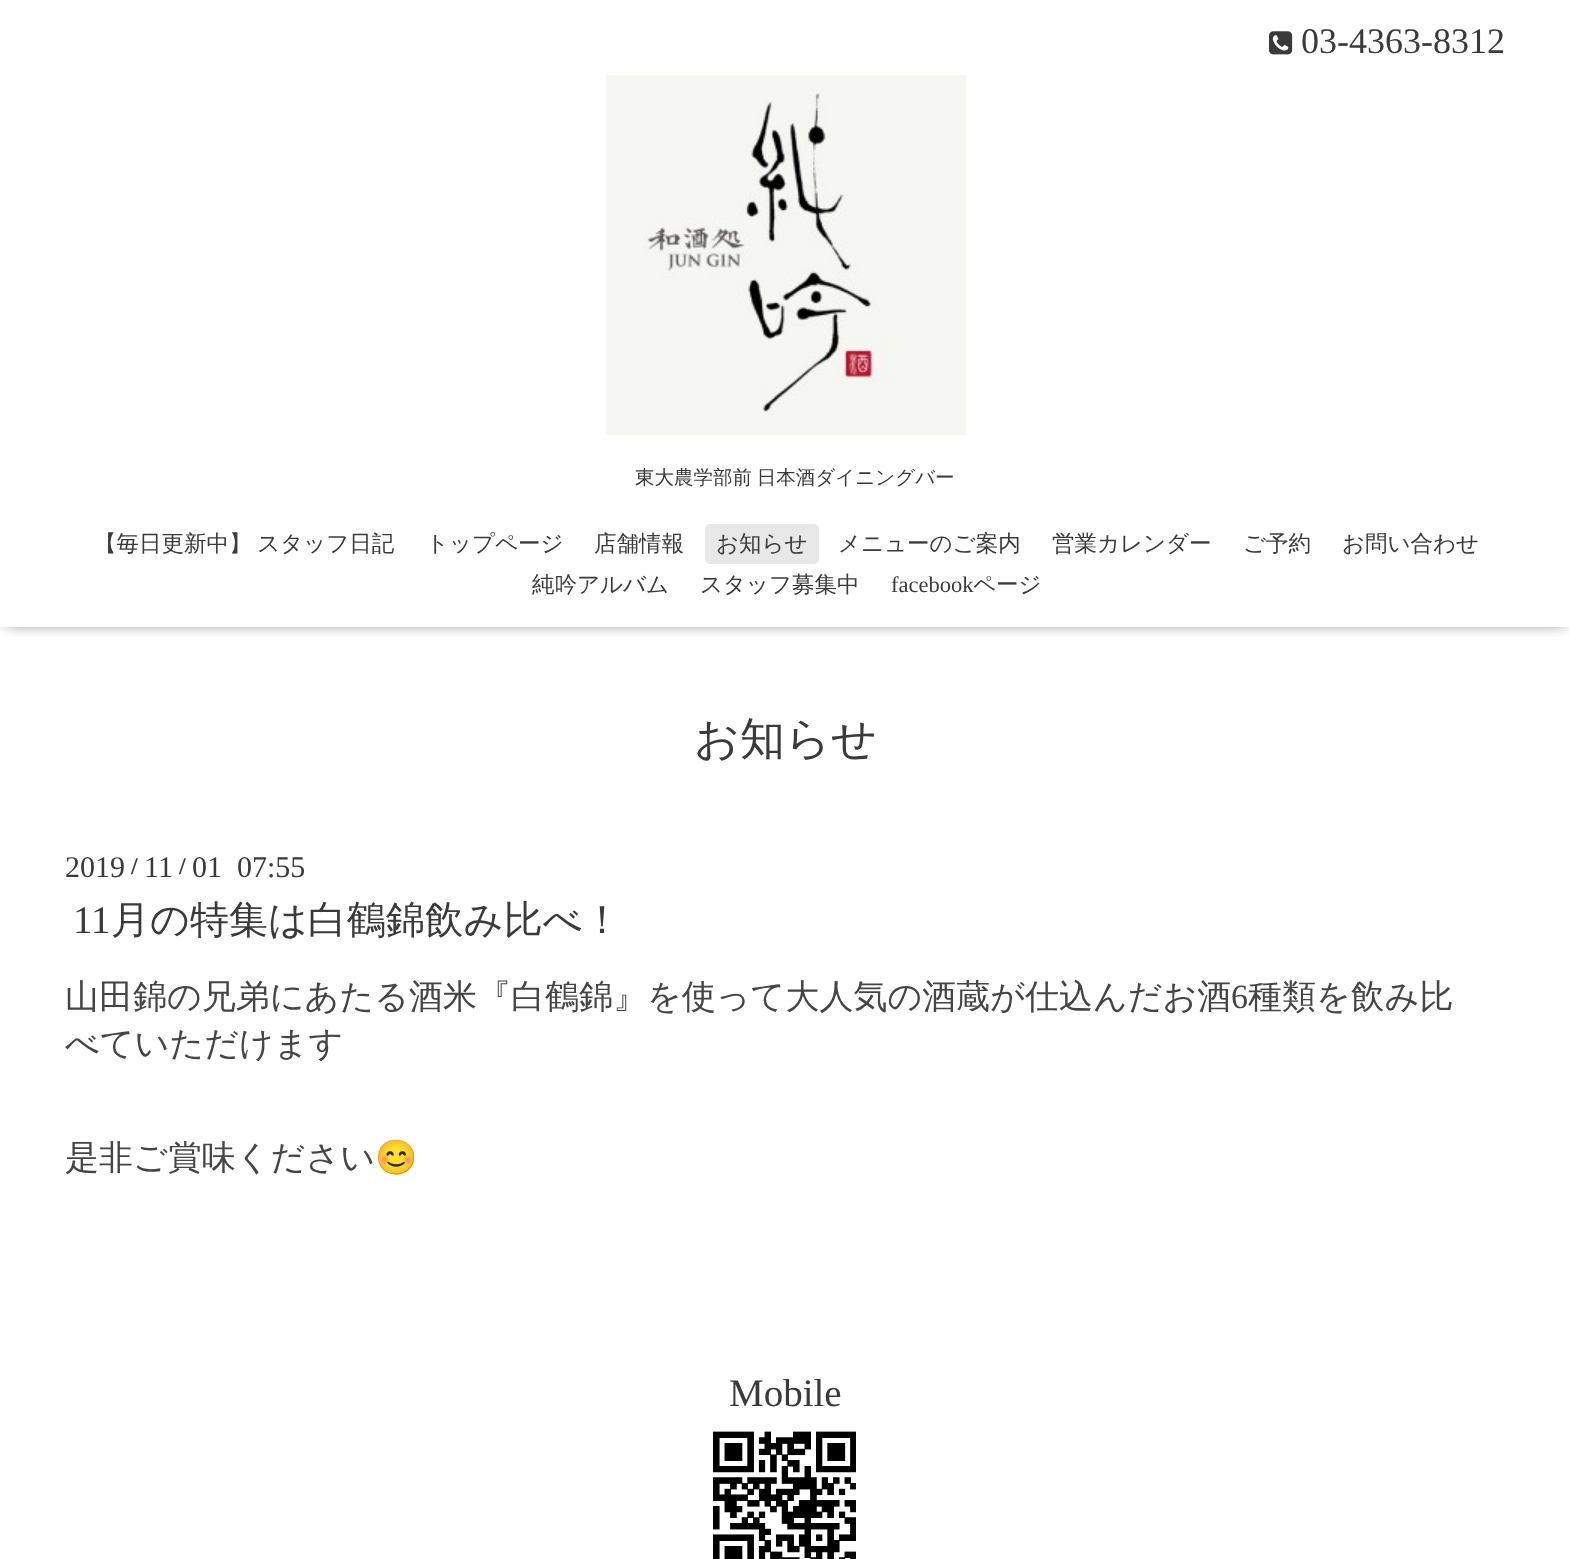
<svg xmlns="http://www.w3.org/2000/svg" width="1570" height="1559" viewBox="0 0 1570 1559">
  <defs>
    <clipPath id="clip1"><rect x="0" y="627" width="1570" height="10"/></clipPath>
  </defs>
  <rect width="100%" height="100%" fill="rgb(255,255,255)"/>
  <g clip-path="url(#clip1)">
    <rect x="6" y="8" width="1559" height="615" fill="rgba(0,0,0,0.6)" filter="blur(7.5px)"/>
  </g>
  <image x="1269" y="31" width="24" height="24" href="pic1.png"/>
  <text x="1301" y="53" font-family="Liberation Serif" font-size="36" fill="rgb(58,58,58)">03-4363-8312</text>
  <image x="606" y="75" width="360" height="360" href="pic2.png"/>
  <text x="635" y="484" word-spacing="-1" font-family="WenQuanYi Zen Hei" font-size="19.5" font-weight="500" fill="rgb(58,58,58)">東大農学部前 日本酒ダイニングバー</text>
  <g font-family="WenQuanYi Zen Hei" font-size="22.5" font-weight="500" fill="rgb(58,58,58)">
    <text x="94" y="551" word-spacing="-1">【毎日更新中】 スタッフ日記</text>
    <text x="426" y="551">トップページ</text>
    <text x="594" y="551">店舗情報</text>
  </g>
  <rect x="705" y="524" width="114" height="40" rx="5" fill="rgb(232,232,232)"/>
  <g font-family="WenQuanYi Zen Hei" font-size="22.5" font-weight="500" fill="rgb(58,58,58)">
    <text x="716" y="551">お知らせ</text>
    <text x="838" y="551">メニューのご案内</text>
    <text x="1052" y="551">営業カレンダー</text>
    <text x="1243" y="551">ご予約</text>
    <text x="1342" y="551">お問い合わせ</text>
    <text x="532" y="592">純吟アルバム</text>
    <text x="700" y="592">スタッフ募集中</text>
  </g>
  <text x="891" y="592" font-family="Liberation Serif" font-size="22.5" fill="rgb(58,58,58)">facebook</text>
  <text x="973" y="592" font-family="WenQuanYi Zen Hei" font-size="22.5" font-weight="500" fill="rgb(58,58,58)">ページ</text>
  <text x="694" y="754" font-family="WenQuanYi Zen Hei" font-size="45" font-weight="500" fill="rgb(58,58,58)">お知らせ</text>
  <text x="65" y="877" font-family="Liberation Serif" font-size="30" fill="rgb(58,58,58)">2019</text>
  <text x="131" y="874" font-family="Liberation Serif" font-size="24" font-weight="bold" fill="rgb(58,58,58)">/</text>
  <text x="144" y="877" font-family="Liberation Serif" font-size="30" fill="rgb(58,58,58)">11</text>
  <text x="179" y="874" font-family="Liberation Serif" font-size="24" font-weight="bold" fill="rgb(58,58,58)">/</text>
  <text x="192" y="877" font-family="Liberation Serif" font-size="30" fill="rgb(58,58,58)" xml:space="preserve">01  07:55</text>
  <text x="73" y="933" font-family="Liberation Serif" font-size="39" fill="rgb(58,58,58)">11</text>
  <text x="111" y="933" font-family="WenQuanYi Zen Hei" font-size="39" font-weight="500" fill="rgb(58,58,58)">月の特集は白鶴錦飲み比べ！</text>
  <text x="65" y="1008" font-family="WenQuanYi Zen Hei" font-size="34" font-weight="500" fill="rgb(69,69,69)">山田錦の兄弟にあたる酒米『白鶴錦』を使って大人気の酒蔵が仕込んだお酒</text>
  <text x="1231" y="1008" font-family="Liberation Serif" font-size="34" fill="rgb(69,69,69)">6</text>
  <g font-family="WenQuanYi Zen Hei" font-size="34" font-weight="500" fill="rgb(69,69,69)">
    <text x="1248" y="1008">種類を飲み比</text>
    <text x="65" y="1055">べていただけます</text>
    <text x="65" y="1169">是非ご賞味ください</text>
  </g>
  <text x="375" y="1169" font-family="Noto Color Emoji" font-size="34" fill="rgb(69,69,69)">😊</text>
  <text x="729" y="1406" font-family="Liberation Serif" font-size="39" fill="rgb(58,58,58)">Mobile</text>
  <image x="713" y="1431" width="143" height="128" href="pic3.png"/>
</svg>
